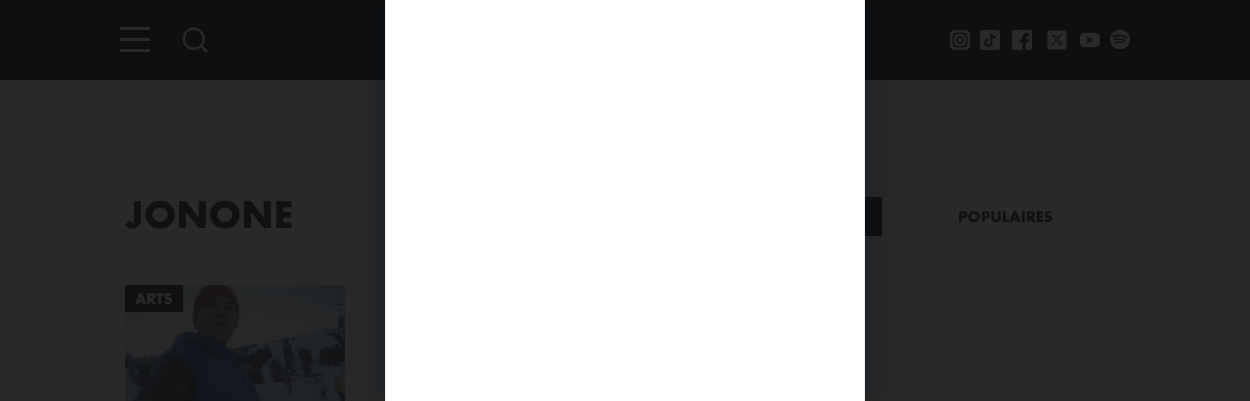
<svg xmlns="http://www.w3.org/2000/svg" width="1250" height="401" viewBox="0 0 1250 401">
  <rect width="100%" height="100%" fill="rgb(41,41,41)"/>
  <rect x="0" y="0" width="1250" height="80" fill="rgb(15,15,15)"/>
  <rect x="865" y="197" width="17" height="39" fill="rgb(15,15,15)"/>
  <image x="125" y="285" width="220" height="116" href="pic8.png"/>
  <rect x="385" y="-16" width="480" height="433" rx="10" fill="rgba(0,16,30,0.4)" filter="blur(20px)"/>
  <rect x="385.5" y="-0.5" width="479" height="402" fill="rgb(255,255,255)" stroke="rgb(238,238,238)"/>
  <rect x="120" y="49" width="30" height="3" fill="rgb(41,41,41)"/>
  <rect x="120" y="38" width="30" height="3" fill="rgb(41,41,41)"/>
  <rect x="120" y="27" width="30" height="3" fill="rgb(41,41,41)"/>
  <image x="182" y="27" width="26" height="26" href="pic1.png"/>
  <image x="950" y="30" width="20" height="20" href="pic2.png"/>
  <image x="980" y="30" width="20" height="20" href="pic3.png"/>
  <image x="1012" y="30" width="20" height="20" href="pic4.png"/>
  <image x="1047" y="30" width="20" height="20" href="pic5.png"/>
  <image x="1080" y="33" width="20" height="14" href="pic6.png"/>
  <image x="1110" y="29" width="20" height="21" href="pic7.png"/>
  <text x="125" y="228" font-family="Futura PT" font-size="40" font-weight="bold" fill="rgb(17,17,17)">JONONE</text>
  <text x="958" y="222" font-family="Futura PT" font-size="16" font-weight="bold" fill="rgb(17,17,17)">POPULAIRES</text>
  <rect x="125" y="285" width="58" height="27" fill="rgb(17,17,17)"/>
  <text x="135" y="304" font-family="Futura PT" font-size="16" font-weight="bold" fill="rgb(41,41,41)">ARTS</text>
</svg>
